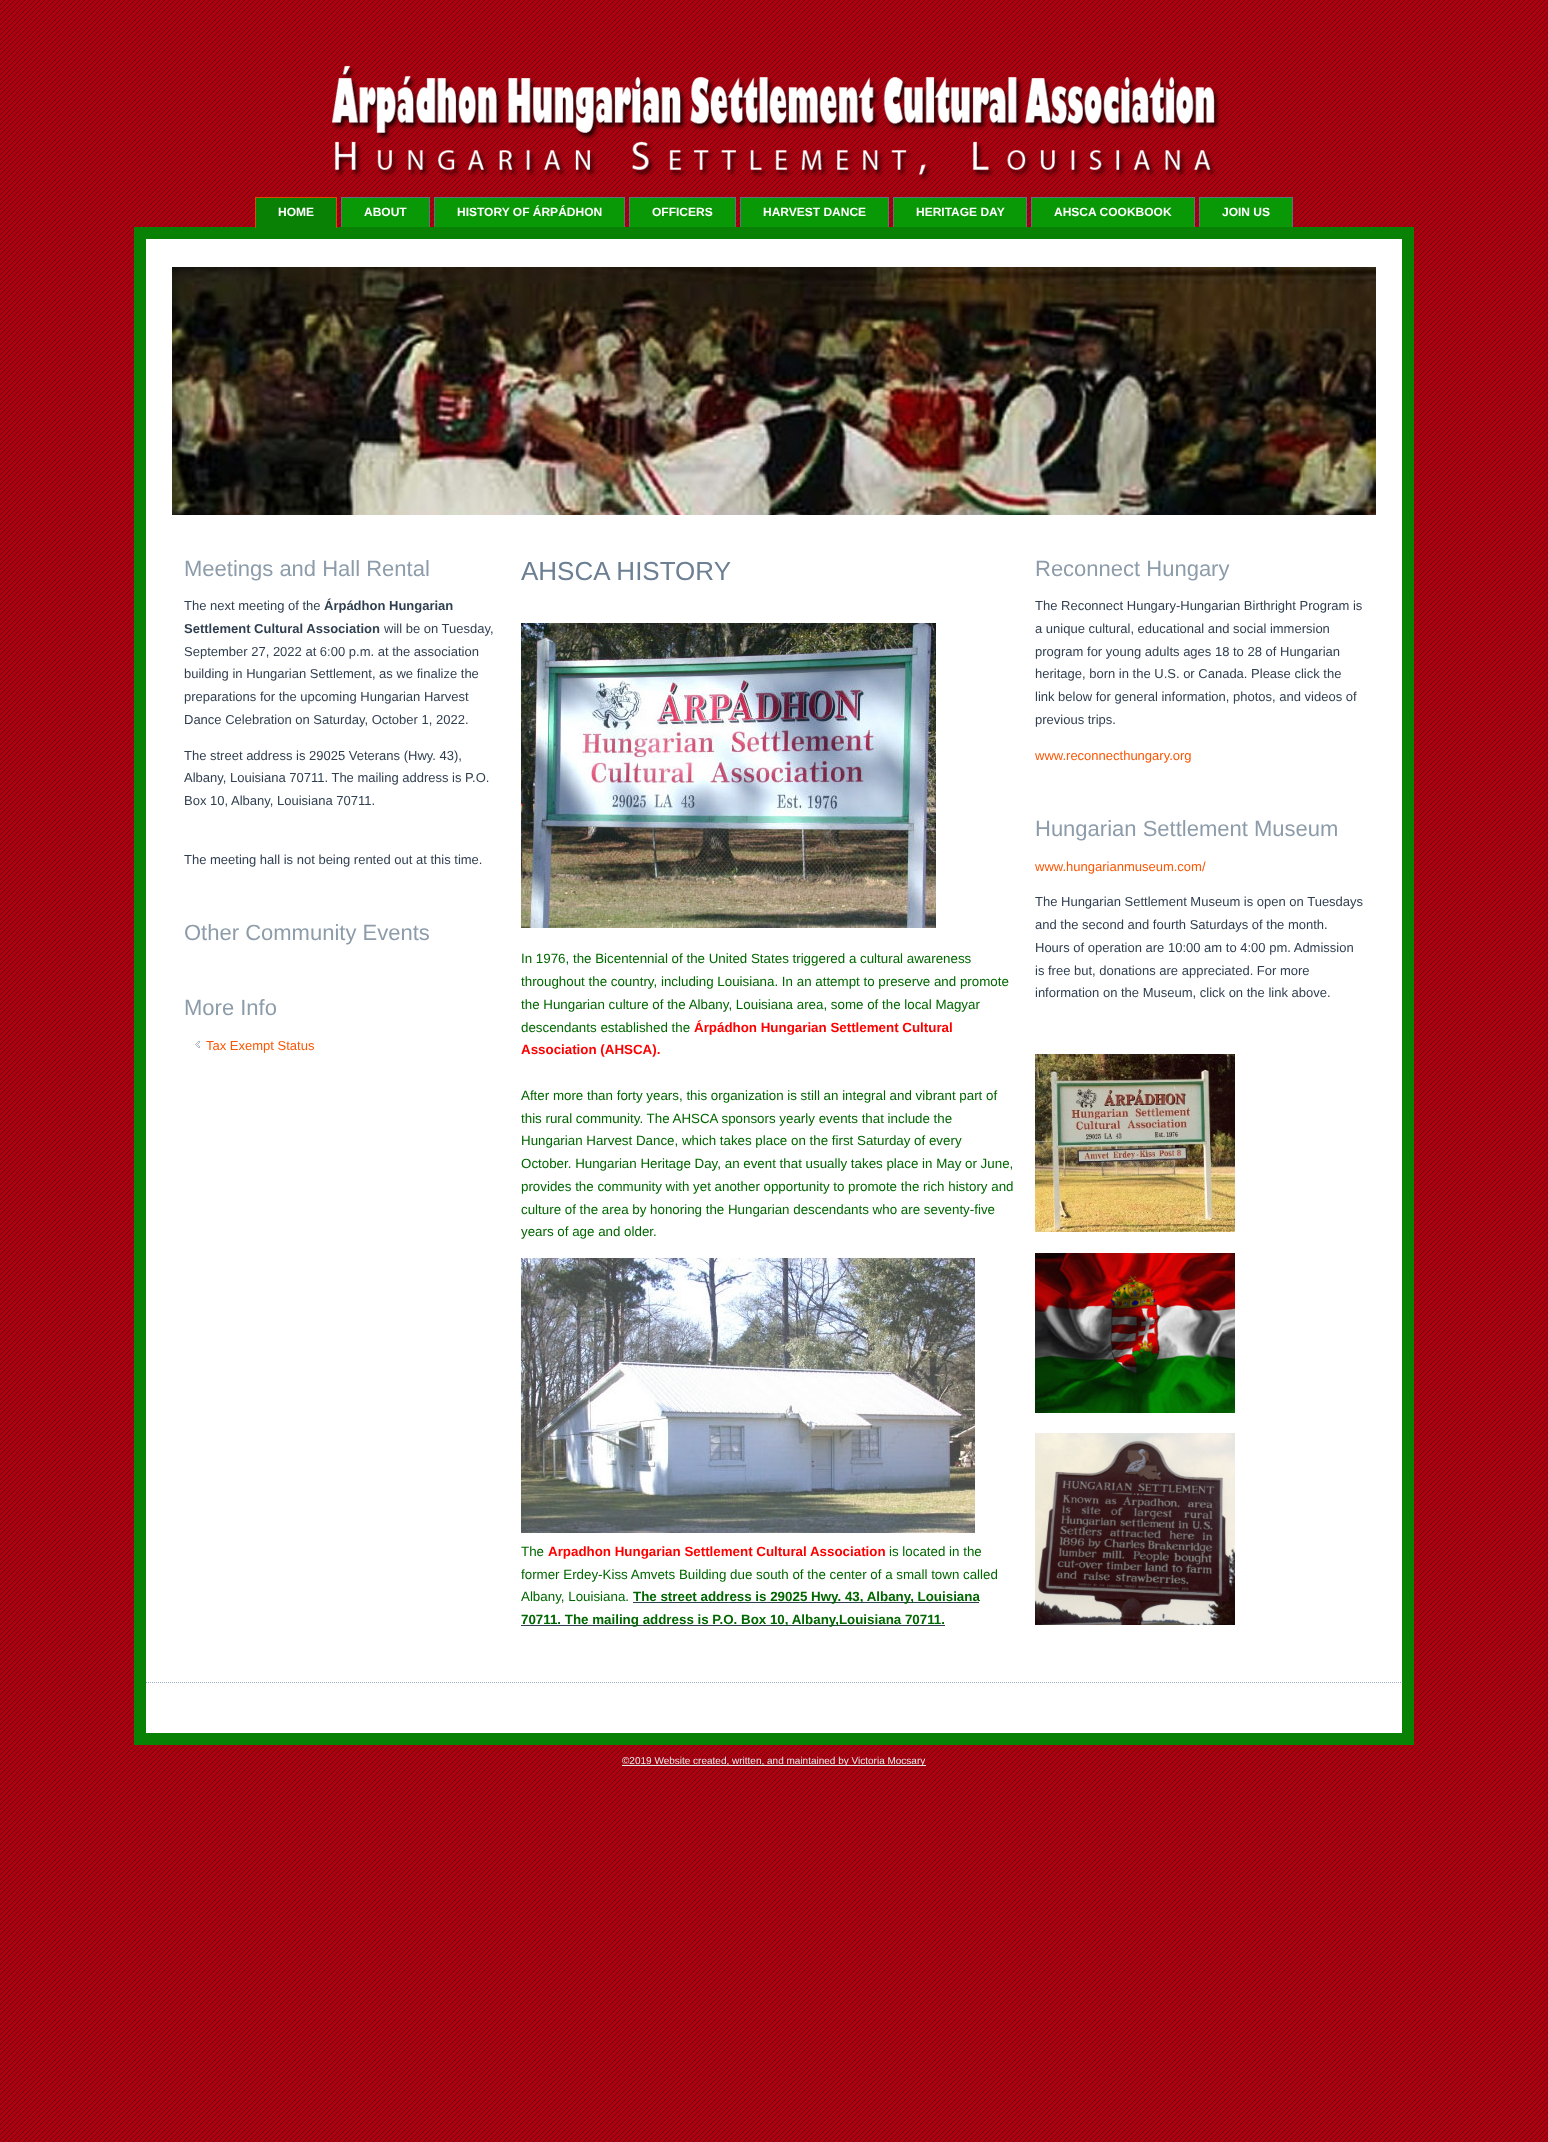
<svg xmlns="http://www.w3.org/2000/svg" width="1548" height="2142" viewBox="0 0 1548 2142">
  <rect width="100%" height="100%" fill="rgb(255,255,255)"/>
  <image x="0" y="0" width="1548" height="2142" href="pic1.png"/>
  <image x="331" y="65" width="889" height="116" href="pic2.png"/>
  <rect x="256" y="198" width="80" height="29" fill="rgb(8,129,5)"/>
  <rect x="255" y="197" width="82" height="1" fill="rgb(215,75,4)"/>
  <rect x="140" y="233" width="1268" height="1506" fill="rgb(255,255,255)" stroke="rgb(8,129,5)" stroke-width="12"/>
  <rect x="336" y="197" width="1" height="31" fill="rgb(215,75,4)"/>
  <rect x="255" y="197" width="1" height="31" fill="rgb(215,75,4)"/>
  <text x="278" y="216" font-family="Liberation Sans" font-size="12" font-weight="bold" fill="rgb(255,255,255)">HOME</text>
  <rect x="342" y="198" width="87" height="29" fill="rgb(10,153,6)"/>
  <rect x="341" y="197" width="89" height="1" fill="rgb(95,112,129)"/>
  <rect x="429" y="197" width="1" height="30" fill="rgb(95,112,129)"/>
  <rect x="341" y="197" width="1" height="30" fill="rgb(95,112,129)"/>
  <text x="364" y="216" font-family="Liberation Sans" font-size="12" font-weight="bold" fill="rgb(255,255,255)">ABOUT</text>
  <rect x="435" y="198" width="189" height="29" fill="rgb(10,153,6)"/>
  <rect x="434" y="197" width="191" height="1" fill="rgb(95,112,129)"/>
  <rect x="624" y="197" width="1" height="30" fill="rgb(95,112,129)"/>
  <rect x="434" y="197" width="1" height="30" fill="rgb(95,112,129)"/>
  <text x="457" y="216" font-family="Liberation Sans" font-size="12" font-weight="bold" fill="rgb(255,255,255)">HISTORY OF ÁRPÁDHON</text>
  <rect x="630" y="198" width="105" height="29" fill="rgb(10,153,6)"/>
  <rect x="629" y="197" width="107" height="1" fill="rgb(95,112,129)"/>
  <rect x="735" y="197" width="1" height="30" fill="rgb(95,112,129)"/>
  <rect x="629" y="197" width="1" height="30" fill="rgb(95,112,129)"/>
  <text x="652" y="216" font-family="Liberation Sans" font-size="12" font-weight="bold" fill="rgb(255,255,255)">OFFICERS</text>
  <rect x="741" y="198" width="147" height="29" fill="rgb(10,153,6)"/>
  <rect x="740" y="197" width="149" height="1" fill="rgb(95,112,129)"/>
  <rect x="888" y="197" width="1" height="30" fill="rgb(95,112,129)"/>
  <rect x="740" y="197" width="1" height="30" fill="rgb(95,112,129)"/>
  <text x="763" y="216" font-family="Liberation Sans" font-size="12" font-weight="bold" fill="rgb(255,255,255)">HARVEST DANCE</text>
  <rect x="894" y="198" width="132" height="29" fill="rgb(10,153,6)"/>
  <rect x="893" y="197" width="134" height="1" fill="rgb(95,112,129)"/>
  <rect x="1026" y="197" width="1" height="30" fill="rgb(95,112,129)"/>
  <rect x="893" y="197" width="1" height="30" fill="rgb(95,112,129)"/>
  <text x="916" y="216" font-family="Liberation Sans" font-size="12" font-weight="bold" fill="rgb(255,255,255)">HERITAGE DAY</text>
  <rect x="1032" y="198" width="162" height="29" fill="rgb(10,153,6)"/>
  <rect x="1031" y="197" width="164" height="1" fill="rgb(95,112,129)"/>
  <rect x="1194" y="197" width="1" height="30" fill="rgb(95,112,129)"/>
  <rect x="1031" y="197" width="1" height="30" fill="rgb(95,112,129)"/>
  <text x="1054" y="216" font-family="Liberation Sans" font-size="12" font-weight="bold" fill="rgb(255,255,255)">AHSCA COOKBOOK</text>
  <rect x="1200" y="198" width="92" height="29" fill="rgb(10,153,6)"/>
  <rect x="1199" y="197" width="94" height="1" fill="rgb(95,112,129)"/>
  <rect x="1292" y="197" width="1" height="30" fill="rgb(95,112,129)"/>
  <rect x="1199" y="197" width="1" height="30" fill="rgb(95,112,129)"/>
  <text x="1222" y="216" font-family="Liberation Sans" font-size="12" font-weight="bold" fill="rgb(255,255,255)">JOIN US</text>
  <image x="172" y="267" width="1204" height="248" href="pic3.png"/>
  <text x="184" y="576" font-family="Liberation Sans" font-size="22" fill="rgb(141,156,170)">Meetings and Hall Rental</text>
  <text x="184" y="610" font-family="Liberation Sans" font-size="13" fill="rgb(48,63,80)">The next meeting of the</text>
  <g font-family="Liberation Sans" font-size="13" font-weight="bold" fill="rgb(48,63,80)">
    <text x="324" y="610">Árpádhon Hungarian</text>
    <text x="184" y="633">Settlement Cultural Association</text>
  </g>
  <g font-family="Liberation Sans" font-size="13" fill="rgb(48,63,80)">
    <text x="384" y="633">will be on Tuesday,</text>
    <text>
      <tspan x="184" y="656">September 27, 2022 at 6:00 p.m. at the association</tspan>
      <tspan x="184" y="678">building in Hungarian Settlement, as we finalize the</tspan>
      <tspan x="184" y="701">preparations for the upcoming Hungarian Harvest</tspan>
      <tspan x="184" y="724">Dance Celebration on Saturday, October 1, 2022.</tspan>
    </text>
    <text>
      <tspan x="184" y="760">The street address is 29025 Veterans (Hwy. 43),</tspan>
      <tspan x="184" y="782">Albany, Louisiana 70711. The mailing address is P.O.</tspan>
      <tspan x="184" y="805">Box 10, Albany, Louisiana 70711.</tspan>
    </text>
    <text x="184" y="864">The meeting hall is not being rented out at this time.</text>
  </g>
  <g font-family="Liberation Sans" font-size="22" fill="rgb(141,156,170)">
    <text x="184" y="940">Other Community Events</text>
    <text x="184" y="1015">More Info</text>
  </g>
  <image x="195" y="1041" width="5" height="7" href="pic4.png"/>
  <text x="206" y="1050" font-family="Liberation Sans" font-size="13" fill="rgb(250,87,5)">Tax Exempt Status</text>
  <text x="521" y="580" font-family="Liberation Sans" font-size="26" fill="rgb(108,127,147)">AHSCA HISTORY</text>
  <image x="521" y="623" width="415" height="305" href="pic5.png"/>
  <g font-family="Liberation Sans" font-size="13.35" fill="rgb(0,102,0)">
    <text>
      <tspan x="521" y="963">In 1976, the Bicentennial of the United States triggered a cultural awareness</tspan>
      <tspan x="521" y="986">throughout the country, including Louisiana. In an attempt to preserve and promote</tspan>
      <tspan x="521" y="1009">the Hungarian culture of the Albany, Louisiana area, some of the local Magyar</tspan>
      <tspan x="521" y="1032">descendants established the</tspan>
    </text>
  </g>
  <g font-family="Liberation Sans" font-size="13.35" font-weight="bold" fill="rgb(255,0,0)">
    <text x="694" y="1032">Árpádhon Hungarian Settlement Cultural</text>
    <text x="521" y="1054">Association (AHSCA).</text>
  </g>
  <g font-family="Liberation Sans" font-size="13.35" fill="rgb(0,102,0)">
    <text>
      <tspan x="521" y="1100">After more than forty years, this organization is still an integral and vibrant part of</tspan>
      <tspan x="521" y="1123">this rural community. The AHSCA sponsors yearly events that include the</tspan>
      <tspan x="521" y="1145">Hungarian Harvest Dance, which takes place on the first Saturday of every</tspan>
      <tspan x="521" y="1168">October. Hungarian Heritage Day, an event that usually takes place in May or June,</tspan>
      <tspan x="521" y="1191">provides the community with yet another opportunity to promote the rich history and</tspan>
      <tspan x="521" y="1214">culture of the area by honoring the Hungarian descendants who are seventy-five</tspan>
      <tspan x="521" y="1236">years of age and older.</tspan>
    </text>
  </g>
  <image x="521" y="1257" width="454" height="276" href="pic6.png"/>
  <text x="521" y="1556" font-family="Liberation Sans" font-size="13.35" fill="rgb(0,102,0)">The</text>
  <text x="548" y="1556" font-family="Liberation Sans" font-size="13.35" font-weight="bold" fill="rgb(255,0,0)">Arpadhon Hungarian Settlement Cultural Association</text>
  <g font-family="Liberation Sans" font-size="13.35" fill="rgb(0,102,0)">
    <text x="889" y="1556">is located in the</text>
    <text>
      <tspan x="521" y="1579">former Erdey-Kiss Amvets Building due south of the center of a small town called</tspan>
      <tspan x="521" y="1601">Albany, Louisiana.</tspan>
    </text>
  </g>
  <rect x="633" y="1602" width="346" height="1" fill="rgb(48,63,80)"/>
  <text x="633" y="1601" font-family="Liberation Sans" font-size="13.35" font-weight="bold" fill="rgb(0,102,0)">The street address is 29025 Hwy. 43, Albany, Louisiana</text>
  <rect x="521" y="1625" width="424" height="1" fill="rgb(48,63,80)"/>
  <text x="521" y="1624" font-family="Liberation Sans" font-size="13.35" font-weight="bold" fill="rgb(0,102,0)">70711. The mailing address is P.O. Box 10, Albany,Louisiana 70711.</text>
  <text x="1035" y="576" font-family="Liberation Sans" font-size="22" fill="rgb(141,156,170)">Reconnect Hungary</text>
  <g font-family="Liberation Sans" font-size="13" fill="rgb(48,63,80)">
    <text>
      <tspan x="1035" y="610">The Reconnect Hungary-Hungarian Birthright Program is</tspan>
      <tspan x="1035" y="633">a unique cultural, educational and social immersion</tspan>
      <tspan x="1035" y="656">program for young adults ages 18 to 28 of Hungarian</tspan>
      <tspan x="1035" y="678">heritage, born in the U.S. or Canada. Please click the</tspan>
      <tspan x="1035" y="701">link below for general information, photos, and videos of</tspan>
      <tspan x="1035" y="724">previous trips.</tspan>
    </text>
  </g>
  <text x="1035" y="760" font-family="Liberation Sans" font-size="13" fill="rgb(250,87,5)">www.reconnecthungary.org</text>
  <text x="1035" y="836" font-family="Liberation Sans" font-size="22" fill="rgb(141,156,170)">Hungarian Settlement Museum</text>
  <text x="1035" y="871" font-family="Liberation Sans" font-size="13" fill="rgb(250,87,5)">www.hungarianmuseum.com/</text>
  <g font-family="Liberation Sans" font-size="13" fill="rgb(48,63,80)">
    <text>
      <tspan x="1035" y="906">The Hungarian Settlement Museum is open on Tuesdays</tspan>
      <tspan x="1035" y="929">and the second and fourth Saturdays of the month.</tspan>
      <tspan x="1035" y="952">Hours of operation are 10:00 am to 4:00 pm. Admission</tspan>
      <tspan x="1035" y="975">is free but, donations are appreciated. For more</tspan>
      <tspan x="1035" y="997">information on the Museum, click on the link above.</tspan>
    </text>
  </g>
  <image x="1035" y="1054" width="200" height="178" href="pic7.png"/>
  <image x="1035" y="1253" width="200" height="160" href="pic8.png"/>
  <image x="1035" y="1433" width="200" height="192" href="pic9.png"/>
  <path d="M146 1682.5H1402" fill="none" stroke="rgb(156,175,196)" stroke-dasharray="1 1"/>
  <rect x="622" y="1765" width="304" height="1" fill="rgb(232,235,238)"/>
  <text x="622" y="1764" font-family="Liberation Sans" font-size="10" fill="rgb(232,235,238)">©2019 Website created, written, and maintained by Victoria Mocsary</text>
</svg>
